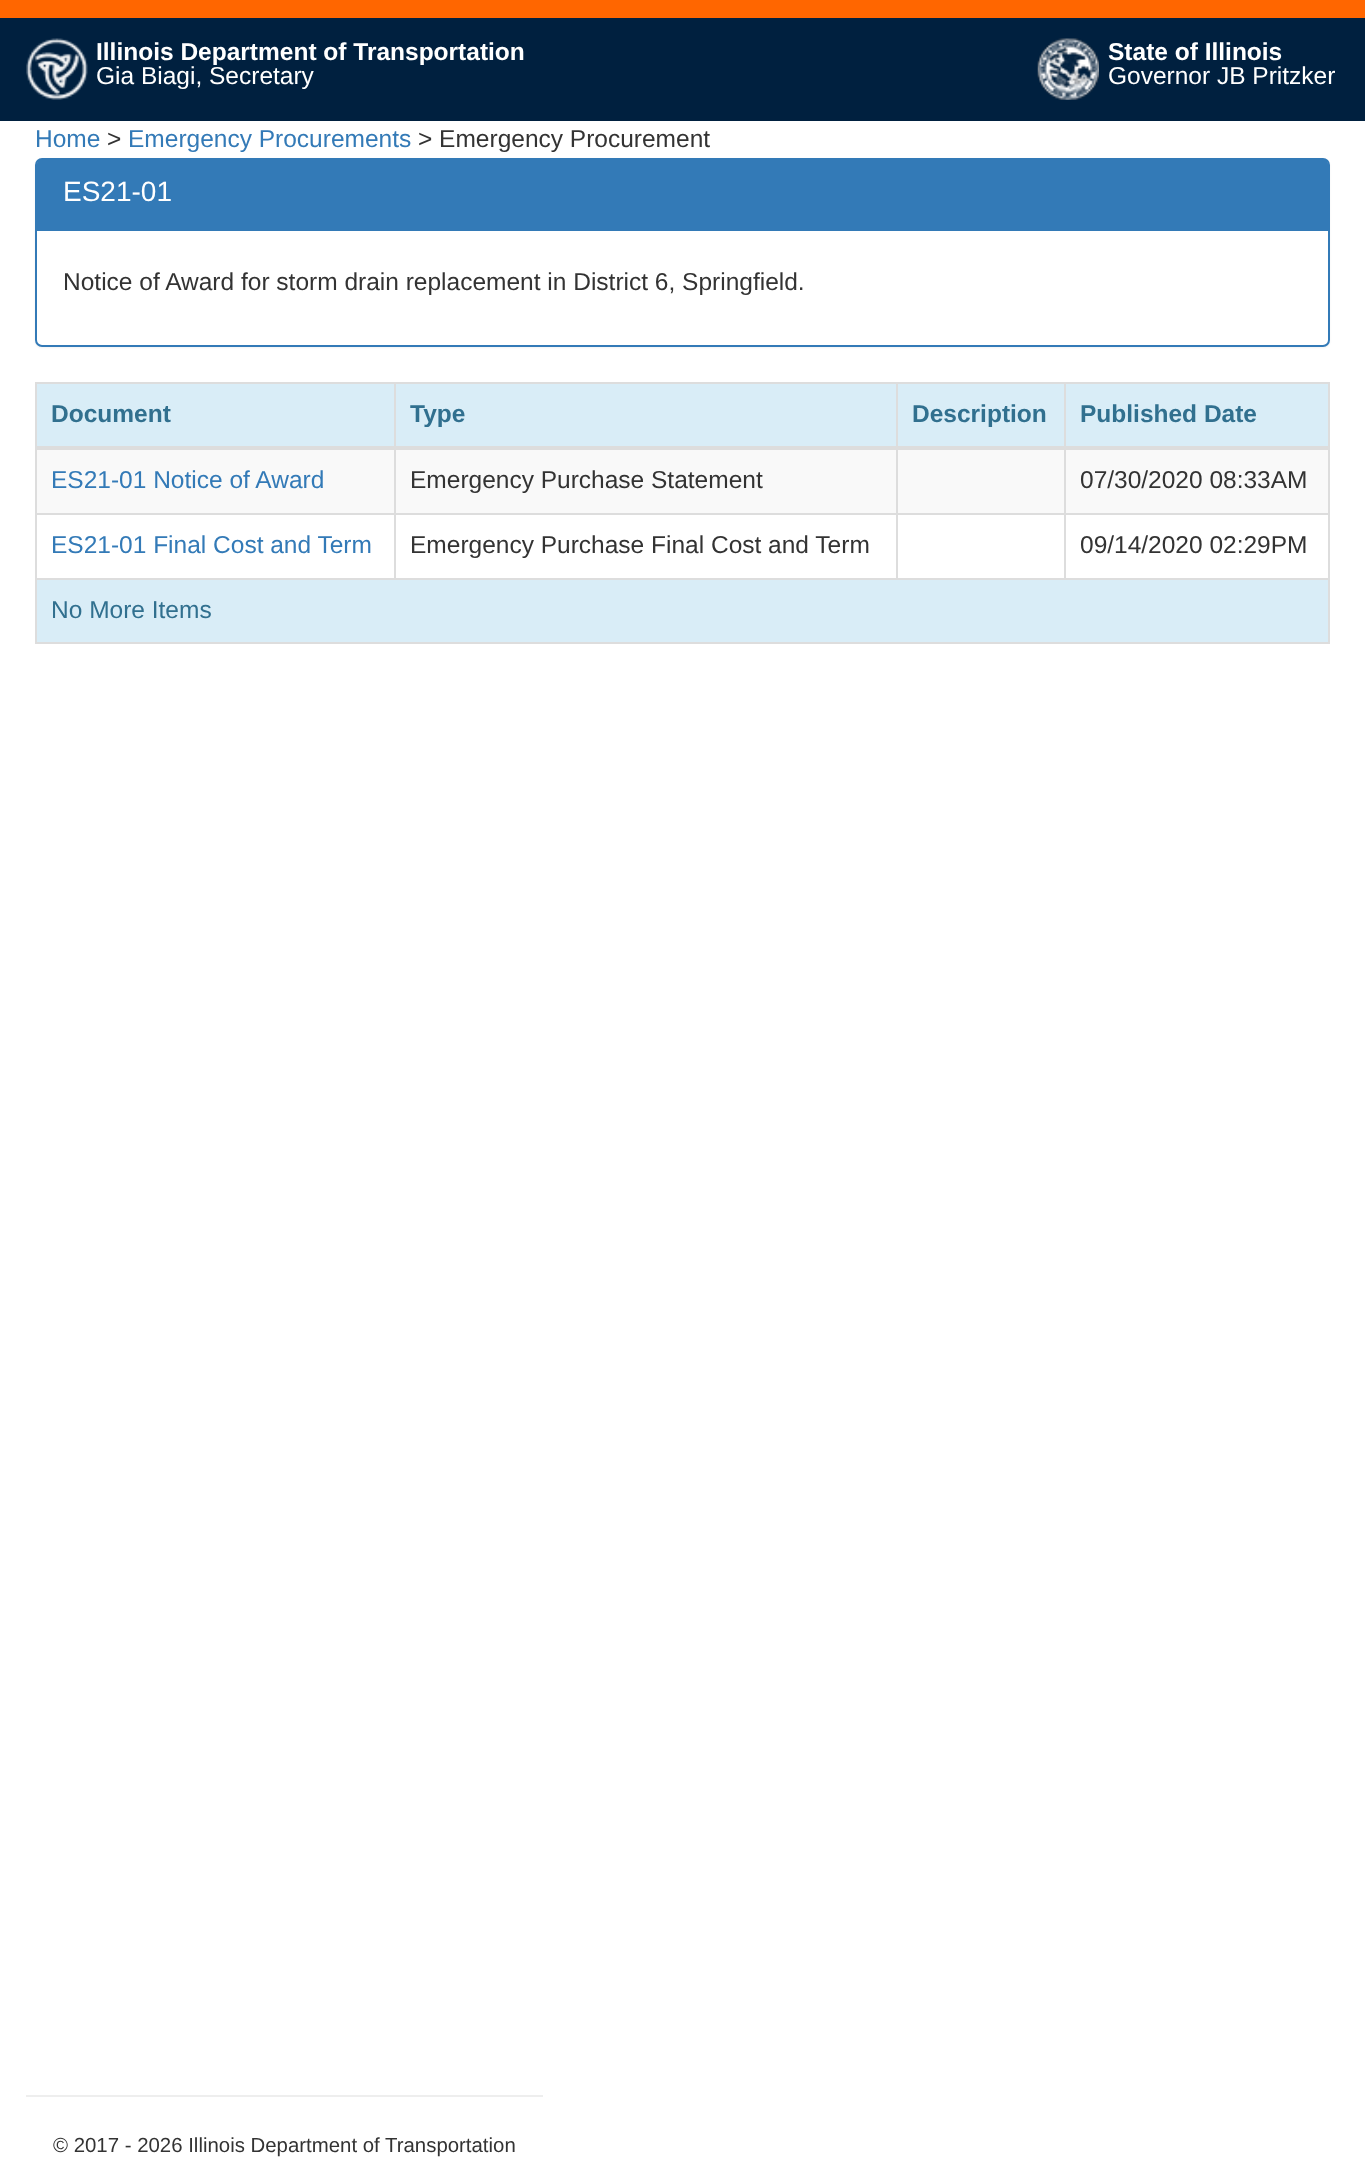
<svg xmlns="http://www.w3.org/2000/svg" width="1365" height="2164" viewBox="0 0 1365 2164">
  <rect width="100%" height="100%" fill="rgb(255,255,255)"/>
  <rect x="0" y="0" width="1365" height="18" fill="rgb(255,102,0)"/>
  <rect x="0" y="18" width="1365" height="103" fill="rgb(0,32,63)"/>
  <image x="26" y="38" width="62" height="62" href="pic1.png"/>
  <text x="96" y="60" font-family="Liberation Sans" font-size="24.5" font-weight="bold" fill="rgb(255,255,255)">Illinois Department of Transportation</text>
  <text x="96" y="84" font-family="Liberation Sans" font-size="24.5" fill="rgb(255,255,255)">Gia Biagi, Secretary</text>
  <image x="1037" y="38" width="62" height="62" href="pic2.png"/>
  <text x="1108" y="60" font-family="Liberation Sans" font-size="24.5" font-weight="bold" fill="rgb(255,255,255)">State of Illinois</text>
  <text x="1108" y="84" font-family="Liberation Sans" font-size="24.5" fill="rgb(255,255,255)">Governor JB Pritzker</text>
  <text x="35" y="147" font-family="Liberation Sans" font-size="24.5" fill="rgb(51,122,183)">Home</text>
  <text x="107" y="147" font-family="Liberation Sans" font-size="24.5" fill="rgb(51,51,51)">&gt;</text>
  <text x="128" y="147" font-family="Liberation Sans" font-size="24.5" fill="rgb(51,122,183)">Emergency Procurements</text>
  <text x="418" y="147" font-family="Liberation Sans" font-size="24.5" fill="rgb(51,51,51)">&gt; Emergency Procurement</text>
  <rect x="35" y="159" width="1295" height="189" rx="7" fill="rgba(0,0,0,0.05)" filter="blur(1px)"/>
  <rect x="36" y="159" width="1293" height="187" rx="6" fill="rgb(255,255,255)" stroke="rgb(51,122,183)" stroke-width="2"/>
  <path d="M42 159H1323C1326 159 1328 161 1328 164V231H37V164C37 161 39 159 42 159Z" fill="rgb(51,122,183)"/>
  <text x="63" y="201" font-family="Liberation Sans" font-size="28" fill="rgb(255,255,255)">ES21-01</text>
  <text x="63" y="290" font-family="Liberation Sans" font-size="24.5" fill="rgb(51,51,51)">Notice of Award for storm drain replacement in District 6, Springfield.</text>
  <rect x="35" y="382" width="1295" height="2" fill="rgb(221,221,221)"/>
  <rect x="1328" y="382" width="2" height="262" fill="rgb(221,221,221)"/>
  <rect x="35" y="642" width="1295" height="2" fill="rgb(221,221,221)"/>
  <rect x="35" y="382" width="2" height="262" fill="rgb(221,221,221)"/>
  <rect x="37" y="384" width="1291" height="62" fill="rgb(217,237,247)"/>
  <g font-family="Liberation Sans" font-size="24.5" font-weight="bold" fill="rgb(49,112,143)">
    <text x="51" y="422">Document</text>
    <text x="410" y="422">Type</text>
    <text x="912" y="422">Description</text>
  </g>
  <rect x="37" y="450" width="1291" height="63" fill="rgb(249,249,249)"/>
  <rect x="1064" y="513" width="266" height="2" fill="rgb(221,221,221)"/>
  <rect x="35" y="578" width="1295" height="2" fill="rgb(221,221,221)"/>
  <rect x="1064" y="513" width="2" height="66" fill="rgb(221,221,221)"/>
  <rect x="896" y="513" width="170" height="2" fill="rgb(221,221,221)"/>
  <rect x="896" y="513" width="2" height="66" fill="rgb(221,221,221)"/>
  <rect x="394" y="513" width="504" height="2" fill="rgb(221,221,221)"/>
  <rect x="394" y="513" width="2" height="66" fill="rgb(221,221,221)"/>
  <rect x="35" y="513" width="361" height="2" fill="rgb(221,221,221)"/>
  <rect x="394" y="382" width="2" height="133" fill="rgb(221,221,221)"/>
  <rect x="896" y="382" width="2" height="133" fill="rgb(221,221,221)"/>
  <rect x="1064" y="382" width="2" height="133" fill="rgb(221,221,221)"/>
  <rect x="35" y="446" width="1295" height="4" fill="rgb(221,221,221)"/>
  <text x="1080" y="422" font-family="Liberation Sans" font-size="24.5" font-weight="bold" fill="rgb(49,112,143)">Published Date</text>
  <text x="51" y="488" font-family="Liberation Sans" font-size="24.5" fill="rgb(51,122,183)">ES21-01 Notice of Award</text>
  <g font-family="Liberation Sans" font-size="24.5" fill="rgb(51,51,51)">
    <text x="410" y="488">Emergency Purchase Statement</text>
    <text x="1080" y="488">07/30/2020 08:33AM</text>
  </g>
  <text x="51" y="553" font-family="Liberation Sans" font-size="24.5" fill="rgb(51,122,183)">ES21-01 Final Cost and Term</text>
  <g font-family="Liberation Sans" font-size="24.5" fill="rgb(51,51,51)">
    <text x="410" y="553">Emergency Purchase Final Cost and Term</text>
    <text x="1080" y="553">09/14/2020 02:29PM</text>
  </g>
  <rect x="37" y="580" width="1291" height="62" fill="rgb(217,237,247)"/>
  <text x="51" y="618" font-family="Liberation Sans" font-size="24.5" fill="rgb(49,112,143)">No More Items</text>
  <rect x="26" y="2095" width="517" height="2" fill="rgb(238,238,238)"/>
  <text x="53" y="2152" font-family="Liberation Sans" font-size="20.4" fill="rgb(51,51,51)">© 2017 - 2026 Illinois Department of Transportation</text>
</svg>
